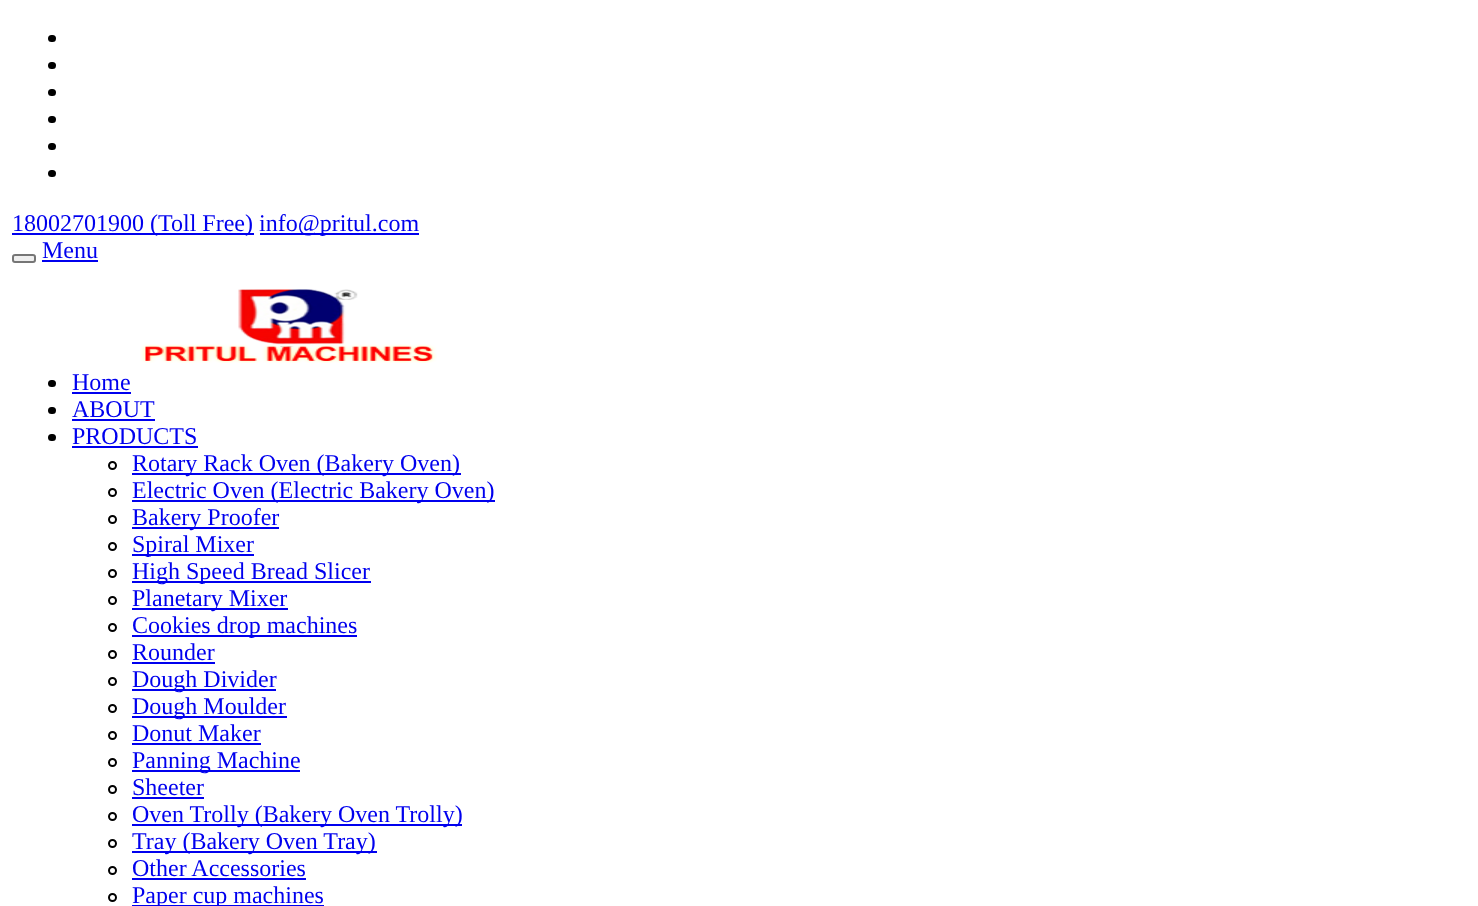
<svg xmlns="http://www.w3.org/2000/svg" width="1478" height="906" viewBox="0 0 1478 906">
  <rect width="100%" height="100%" fill="rgb(255,255,255)"/>
  <rect x="48" y="35" width="8" height="7" rx="3.5" fill="rgb(0,0,0)"/>
  <rect x="48" y="62" width="8" height="7" rx="3.5" fill="rgb(0,0,0)"/>
  <rect x="48" y="89" width="8" height="7" rx="3.5" fill="rgb(0,0,0)"/>
  <rect x="48" y="116" width="8" height="7" rx="3.5" fill="rgb(0,0,0)"/>
  <rect x="48" y="143" width="8" height="7" rx="3.5" fill="rgb(0,0,0)"/>
  <rect x="48" y="170" width="8" height="7" rx="3.5" fill="rgb(0,0,0)"/>
  <rect x="12" y="233" width="242" height="2" fill="rgb(0,0,238)"/>
  <text x="12" y="231" font-family="Liberation Serif" font-size="24" fill="rgb(0,0,238)">18002701900 (Toll Free)</text>
  <rect x="260" y="233" width="159" height="2" fill="rgb(0,0,238)"/>
  <text x="259" y="231" font-family="Liberation Serif" font-size="24" fill="rgb(0,0,238)">info@pritul.com</text>
  <rect x="13" y="255" width="22" height="7" rx="2" fill="rgb(239,239,239)" stroke="rgb(118,118,118)" stroke-width="2"/>
  <text x="42" y="258" font-family="Liberation Serif" font-size="24" fill="rgb(0,0,238)">Menu</text>
  <rect x="42" y="260" width="56" height="2" fill="rgb(0,0,238)"/>
  <image x="140" y="289" width="297" height="74" href="pic1.png"/>
  <rect x="48" y="380" width="8" height="7" rx="3.5" fill="rgb(0,0,0)"/>
  <text x="72" y="390" font-family="Liberation Serif" font-size="24" fill="rgb(0,0,238)">Home</text>
  <rect x="72" y="392" width="59" height="2" fill="rgb(0,0,238)"/>
  <rect x="48" y="407" width="8" height="7" rx="3.5" fill="rgb(0,0,0)"/>
  <text x="72" y="417" font-family="Liberation Serif" font-size="24" fill="rgb(0,0,238)">ABOUT</text>
  <rect x="72" y="419" width="83" height="2" fill="rgb(0,0,238)"/>
  <rect x="48" y="434" width="8" height="7" rx="3.5" fill="rgb(0,0,0)"/>
  <text x="72" y="444" font-family="Liberation Serif" font-size="24" fill="rgb(0,0,238)">PRODUCTS</text>
  <rect x="72" y="446" width="126" height="2" fill="rgb(0,0,238)"/>
  <circle cx="112.5" cy="465.5" r="3.5" fill="none" stroke="rgb(0,0,0)" stroke-width="2"/>
  <rect x="132" y="473" width="329" height="2" fill="rgb(0,0,238)"/>
  <text x="132" y="471" font-family="Liberation Serif" font-size="24" fill="rgb(0,0,238)">Rotary Rack Oven (Bakery Oven)</text>
  <circle cx="112.5" cy="492.5" r="3.5" fill="none" stroke="rgb(0,0,0)" stroke-width="2"/>
  <rect x="132" y="500" width="363" height="2" fill="rgb(0,0,238)"/>
  <text x="132" y="498" font-family="Liberation Serif" font-size="24" fill="rgb(0,0,238)">Electric Oven (Electric Bakery Oven)</text>
  <circle cx="112.5" cy="519.5" r="3.5" fill="none" stroke="rgb(0,0,0)" stroke-width="2"/>
  <rect x="132" y="527" width="147" height="2" fill="rgb(0,0,238)"/>
  <text x="132" y="525" font-family="Liberation Serif" font-size="24" fill="rgb(0,0,238)">Bakery Proofer</text>
  <circle cx="112.5" cy="546.5" r="3.5" fill="none" stroke="rgb(0,0,0)" stroke-width="2"/>
  <rect x="132" y="554" width="122" height="2" fill="rgb(0,0,238)"/>
  <text x="132" y="552" font-family="Liberation Serif" font-size="24" fill="rgb(0,0,238)">Spiral Mixer</text>
  <circle cx="112.5" cy="573.5" r="3.5" fill="none" stroke="rgb(0,0,0)" stroke-width="2"/>
  <rect x="132" y="581" width="239" height="2" fill="rgb(0,0,238)"/>
  <text x="132" y="579" font-family="Liberation Serif" font-size="24" fill="rgb(0,0,238)">High Speed Bread Slicer</text>
  <circle cx="112.5" cy="600.5" r="3.5" fill="none" stroke="rgb(0,0,0)" stroke-width="2"/>
  <rect x="132" y="608" width="156" height="2" fill="rgb(0,0,238)"/>
  <text x="132" y="606" font-family="Liberation Serif" font-size="24" fill="rgb(0,0,238)">Planetary Mixer</text>
  <circle cx="112.5" cy="627.5" r="3.5" fill="none" stroke="rgb(0,0,0)" stroke-width="2"/>
  <rect x="132" y="635" width="225" height="2" fill="rgb(0,0,238)"/>
  <text x="132" y="633" font-family="Liberation Serif" font-size="24" fill="rgb(0,0,238)">Cookies drop machines</text>
  <circle cx="112.5" cy="654.5" r="3.5" fill="none" stroke="rgb(0,0,0)" stroke-width="2"/>
  <text x="132" y="660" font-family="Liberation Serif" font-size="24" fill="rgb(0,0,238)">Rounder</text>
  <rect x="132" y="662" width="83" height="2" fill="rgb(0,0,238)"/>
  <circle cx="112.5" cy="681.5" r="3.5" fill="none" stroke="rgb(0,0,0)" stroke-width="2"/>
  <rect x="132" y="689" width="144" height="2" fill="rgb(0,0,238)"/>
  <text x="132" y="687" font-family="Liberation Serif" font-size="24" fill="rgb(0,0,238)">Dough Divider</text>
  <circle cx="112.5" cy="708.5" r="3.5" fill="none" stroke="rgb(0,0,0)" stroke-width="2"/>
  <rect x="132" y="716" width="155" height="2" fill="rgb(0,0,238)"/>
  <text x="132" y="714" font-family="Liberation Serif" font-size="24" fill="rgb(0,0,238)">Dough Moulder</text>
  <circle cx="112.5" cy="735.5" r="3.5" fill="none" stroke="rgb(0,0,0)" stroke-width="2"/>
  <text x="132" y="741" font-family="Liberation Serif" font-size="24" fill="rgb(0,0,238)">Donut Maker</text>
  <rect x="132" y="743" width="129" height="2" fill="rgb(0,0,238)"/>
  <circle cx="112.5" cy="762.5" r="3.5" fill="none" stroke="rgb(0,0,0)" stroke-width="2"/>
  <rect x="132" y="770" width="168" height="2" fill="rgb(0,0,238)"/>
  <text x="132" y="768" font-family="Liberation Serif" font-size="24" fill="rgb(0,0,238)">Panning Machine</text>
  <circle cx="112.5" cy="789.5" r="3.5" fill="none" stroke="rgb(0,0,0)" stroke-width="2"/>
  <text x="132" y="795" font-family="Liberation Serif" font-size="24" fill="rgb(0,0,238)">Sheeter</text>
  <rect x="132" y="797" width="72" height="2" fill="rgb(0,0,238)"/>
  <circle cx="112.5" cy="816.5" r="3.5" fill="none" stroke="rgb(0,0,0)" stroke-width="2"/>
  <rect x="132" y="824" width="330" height="2" fill="rgb(0,0,238)"/>
  <text x="132" y="822" font-family="Liberation Serif" font-size="24" fill="rgb(0,0,238)">Oven Trolly (Bakery Oven Trolly)</text>
  <circle cx="112.5" cy="843.5" r="3.5" fill="none" stroke="rgb(0,0,0)" stroke-width="2"/>
  <rect x="132" y="851" width="245" height="2" fill="rgb(0,0,238)"/>
  <text x="132" y="849" font-family="Liberation Serif" font-size="24" fill="rgb(0,0,238)">Tray (Bakery Oven Tray)</text>
  <circle cx="112.5" cy="870.5" r="3.5" fill="none" stroke="rgb(0,0,0)" stroke-width="2"/>
  <text x="132" y="876" font-family="Liberation Serif" font-size="24" fill="rgb(0,0,238)">Other Accessories</text>
  <rect x="132" y="878" width="174" height="2" fill="rgb(0,0,238)"/>
  <circle cx="112.5" cy="897.5" r="3.5" fill="none" stroke="rgb(0,0,0)" stroke-width="2"/>
  <rect x="132" y="905" width="192" height="1" fill="rgb(0,0,238)"/>
  <text x="132" y="903" font-family="Liberation Serif" font-size="24" fill="rgb(0,0,238)">Paper cup machines</text>
</svg>
